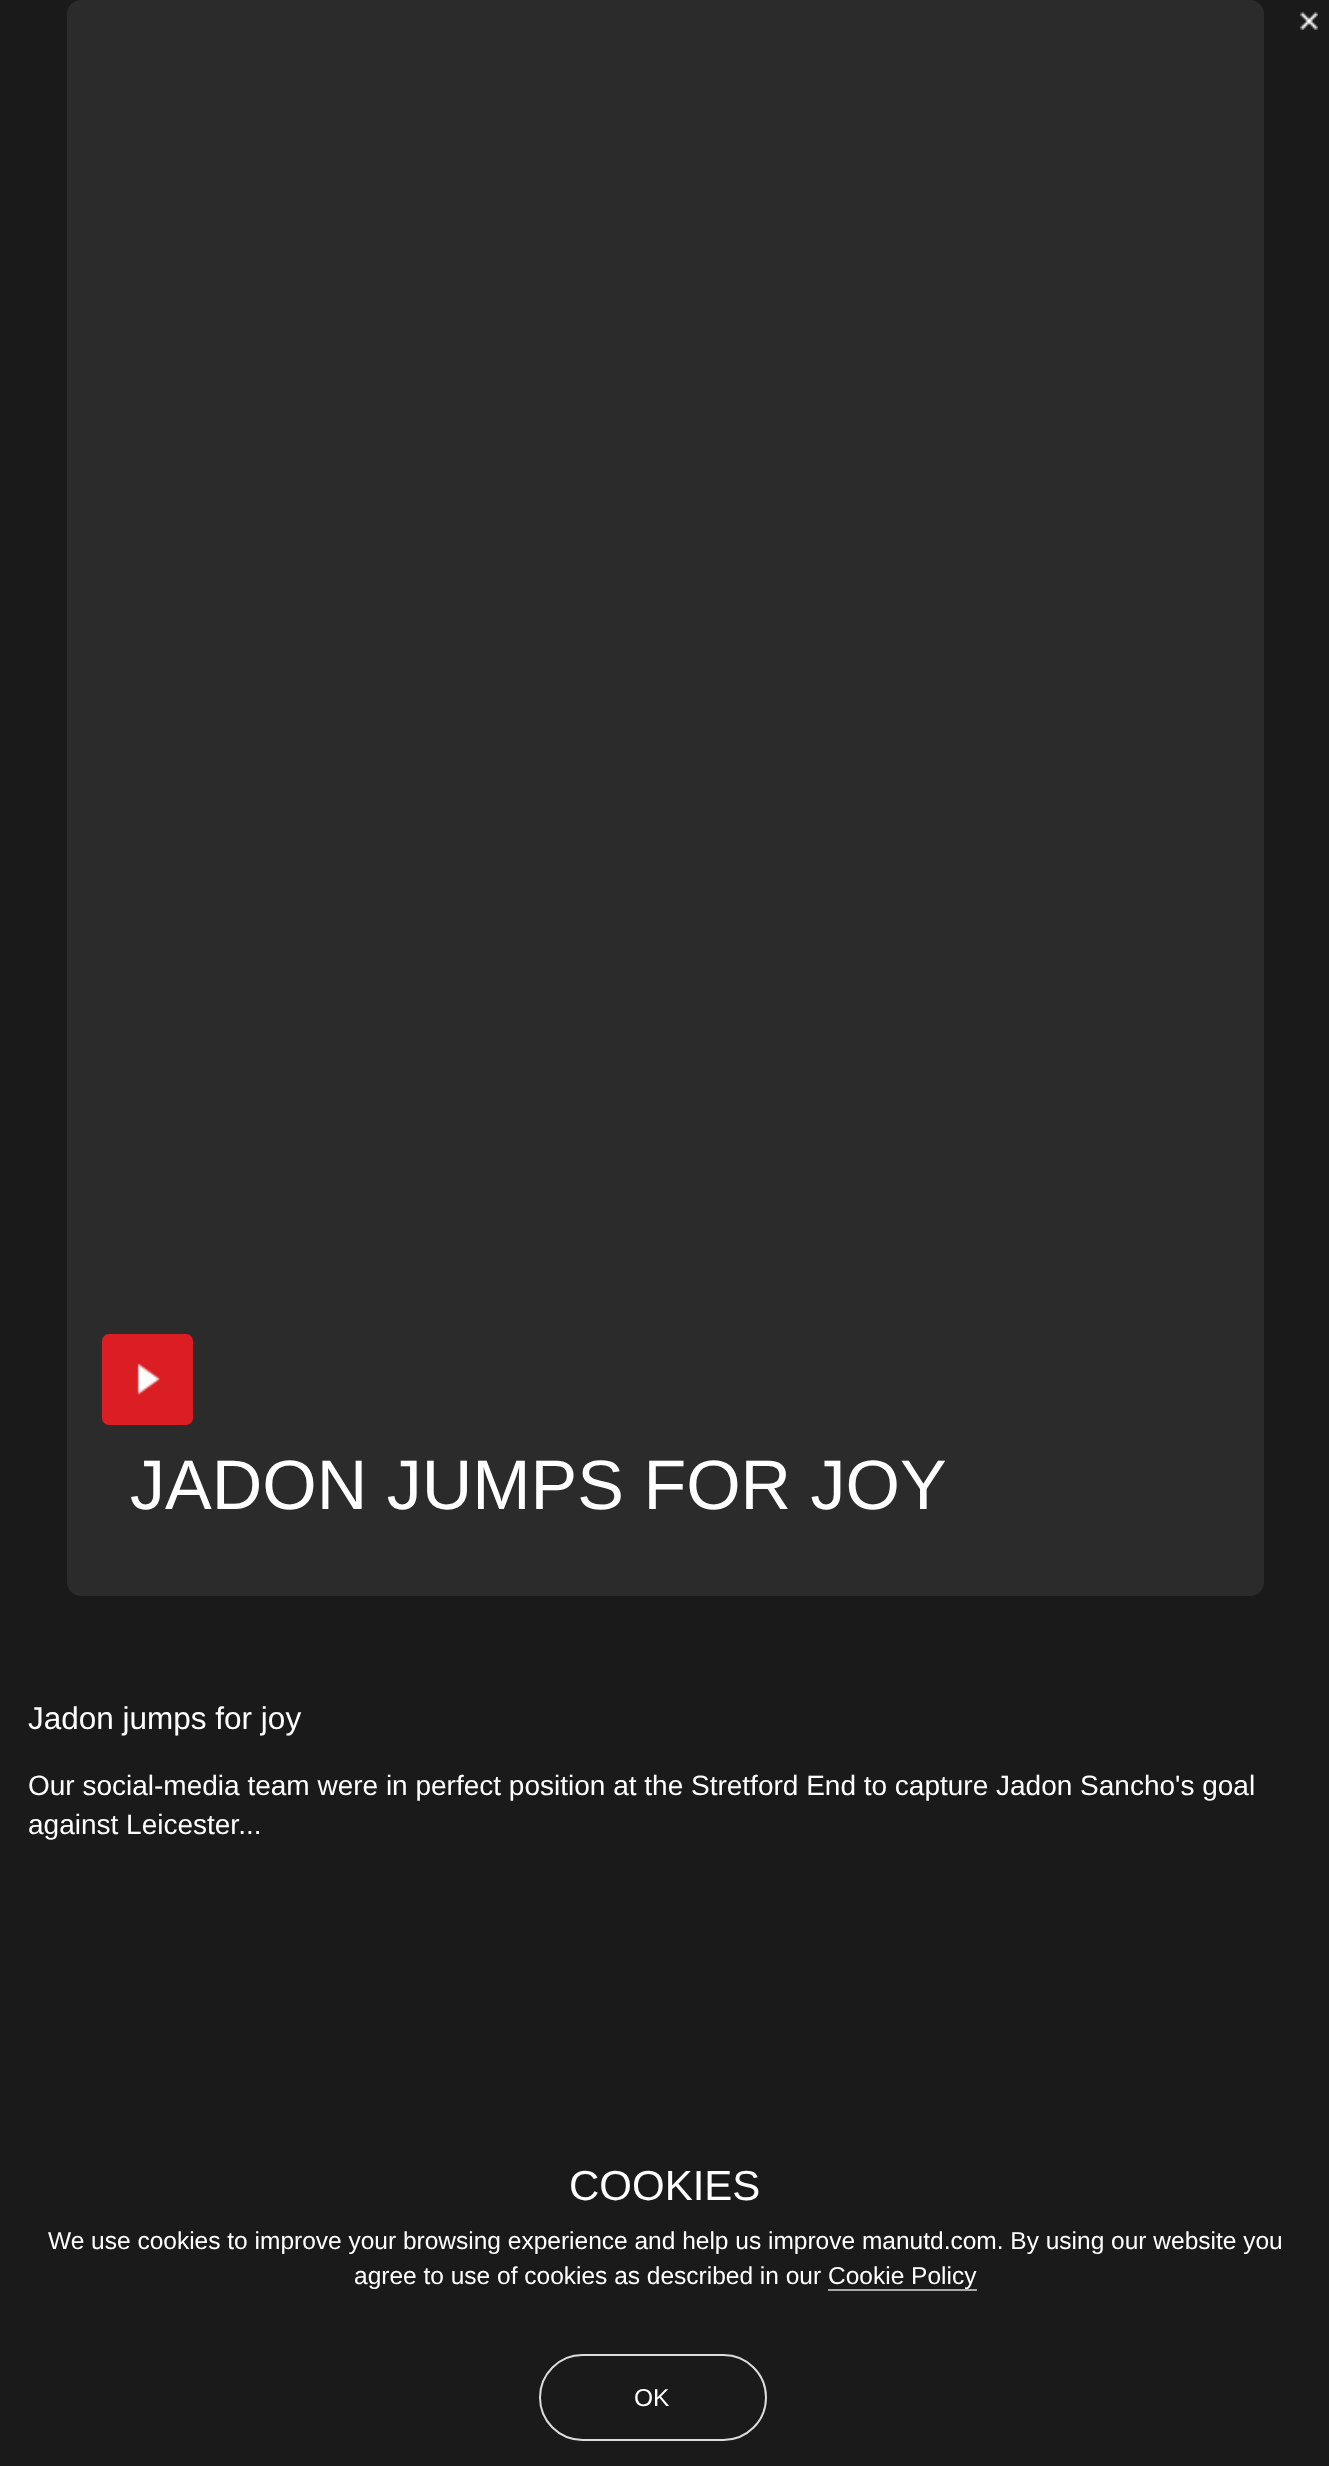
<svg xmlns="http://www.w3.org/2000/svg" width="1329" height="2466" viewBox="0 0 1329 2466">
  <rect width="100%" height="100%" fill="rgb(26,26,26)"/>
  <image x="1300" y="11" width="18" height="19" href="pic1.png"/>
  <rect x="67" y="0" width="1197" height="1596" rx="14" fill="rgb(43,43,43)"/>
  <rect x="102" y="1334" width="91" height="91" rx="7" fill="rgb(219,29,36)"/>
  <image x="137" y="1363" width="23" height="32" href="pic2.png"/>
  <text x="130" y="1509" font-family="Liberation Sans" font-size="70" fill="rgb(255,255,255)">JADON JUMPS FOR JOY</text>
  <text x="28" y="1729" font-family="Liberation Sans" font-size="31.5" fill="rgb(255,255,255)">Jadon jumps for joy</text>
  <g font-family="Liberation Sans" font-size="28" fill="rgb(255,255,255)">
    <text>
      <tspan x="28" y="1795">Our social-media team were in perfect position at the Stretford End to capture Jadon Sancho's goal</tspan>
      <tspan x="28" y="1834">against Leicester...</tspan>
    </text>
  </g>
  <text x="569" y="2200" font-family="Liberation Sans" font-size="42" fill="rgb(255,255,255)">COOKIES</text>
  <g font-family="Liberation Sans" font-size="24.5" fill="rgb(255,255,255)">
    <text x="48" y="2249">We use cookies to improve your browsing experience and help us improve manutd.com. By using our website you</text>
    <text x="354" y="2284">agree to use of cookies as described in our</text>
  </g>
  <rect x="828" y="2289" width="149" height="2" fill="rgb(168,168,168)"/>
  <text x="828" y="2284" font-family="Liberation Sans" font-size="24.5" fill="rgb(255,255,255)">Cookie Policy</text>
  <rect x="540" y="2355" width="226" height="85" rx="42.5" fill="none" stroke="rgb(221,221,221)" stroke-width="2"/>
  <text x="634" y="2406" font-family="Liberation Sans" font-size="24.5" fill="rgb(255,255,255)">OK</text>
</svg>
